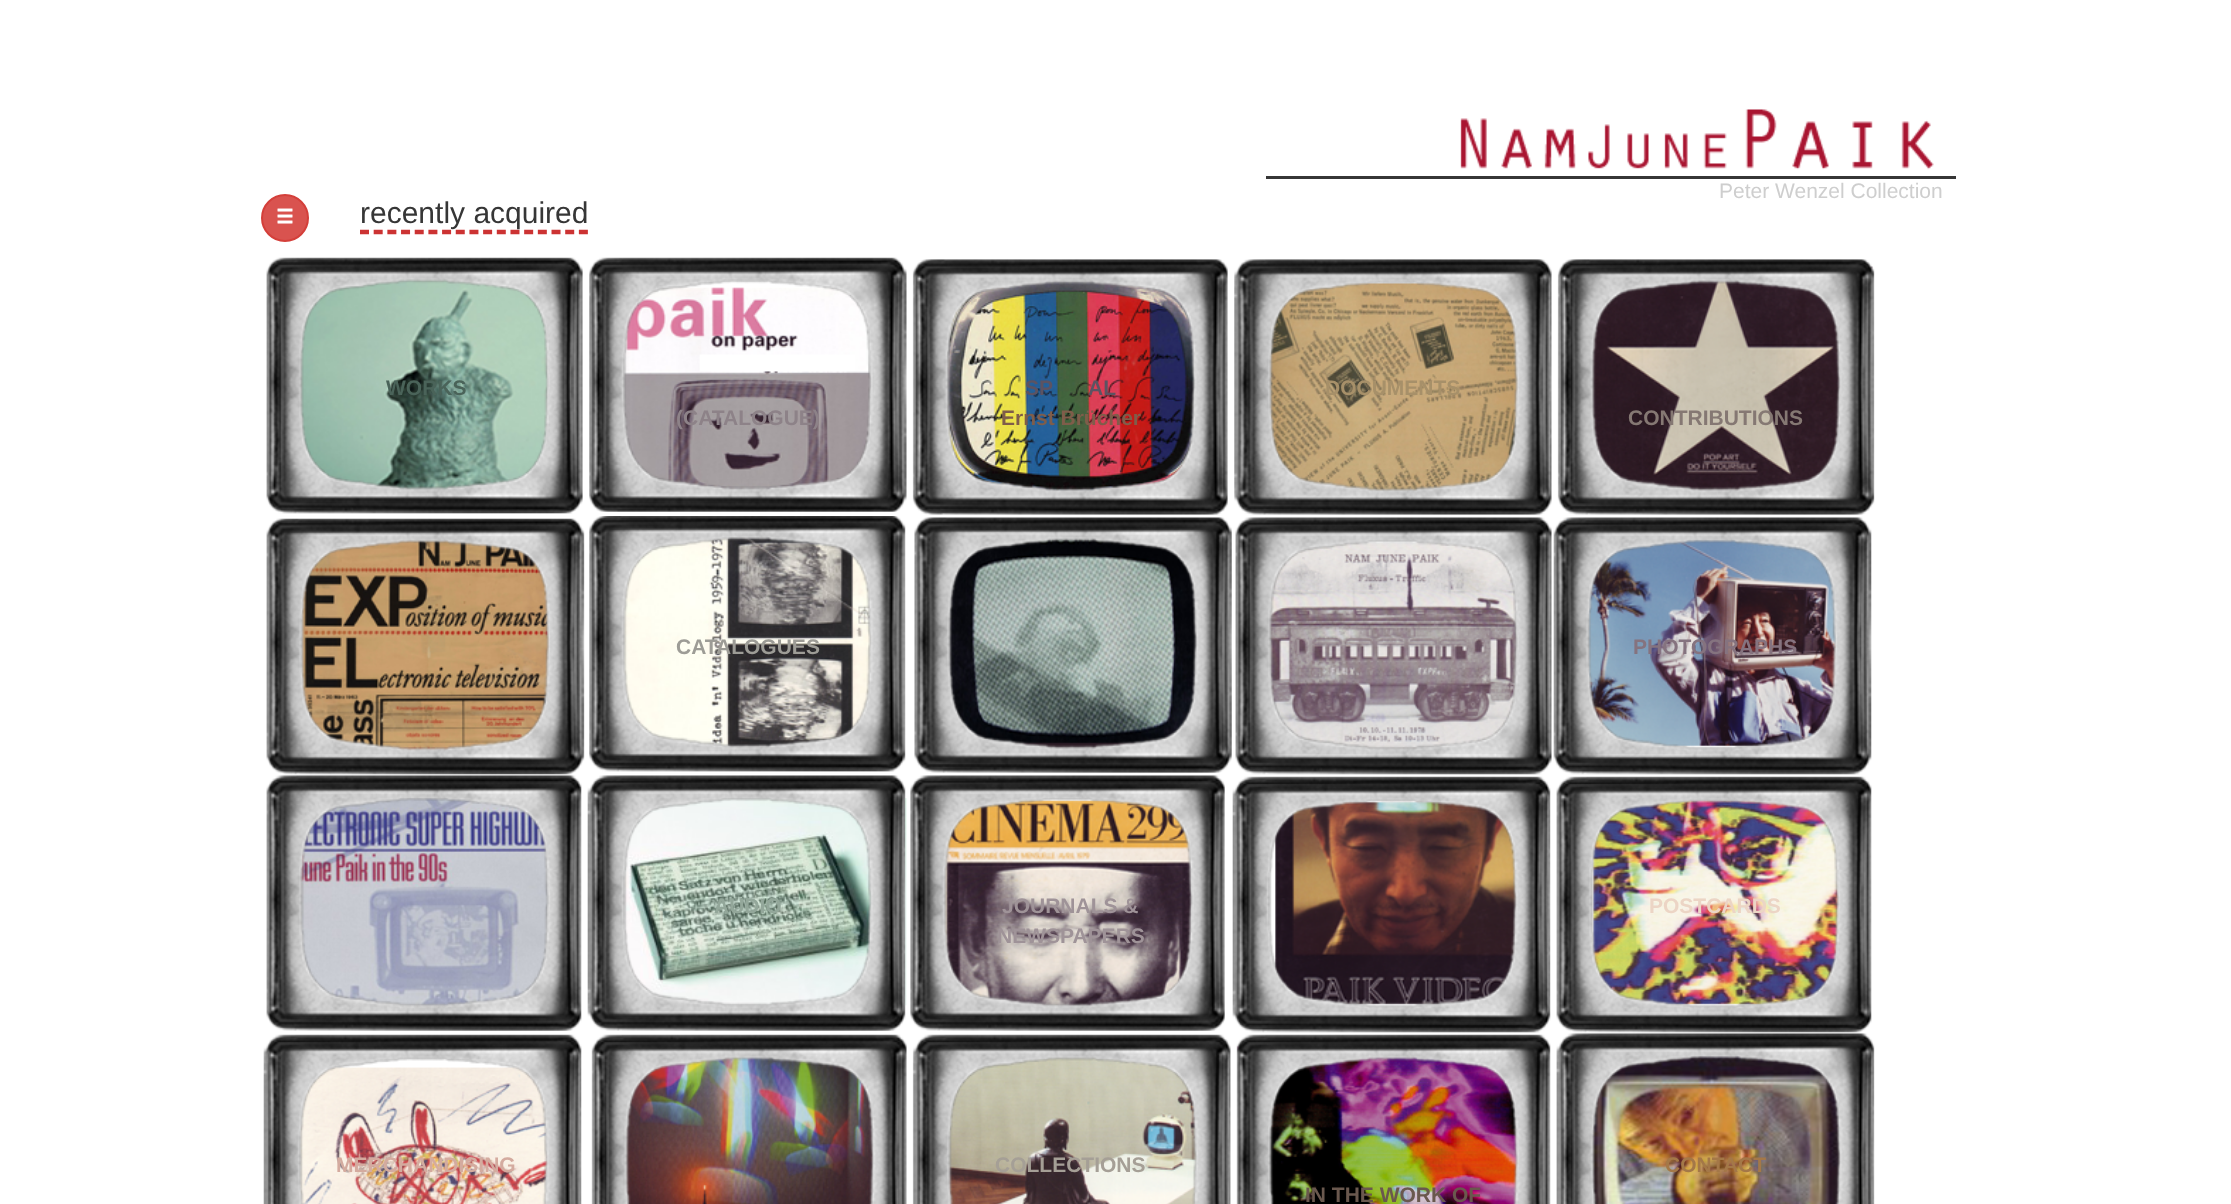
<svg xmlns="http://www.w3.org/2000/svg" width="2231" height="1204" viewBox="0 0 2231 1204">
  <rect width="100%" height="100%" fill="rgb(255,255,255)"/>
  <rect x="1266" y="176" width="690" height="3" fill="rgb(54,54,54)"/>
  <image x="1460" y="109" width="474" height="61" href="pic1.png"/>
  <text x="1719" y="198" font-family="Liberation Sans" font-size="21" fill="rgb(206,206,206)">Peter Wenzel Collection</text>
  <circle cx="285" cy="218" r="23" fill="rgb(217,83,79)" stroke="rgb(212,63,58)" stroke-width="2"/>
  <image x="277" y="208" width="16" height="16" href="pic2.png"/>
  <path d="M360 232H588" fill="none" stroke="rgb(204,51,51)" stroke-width="4.5" stroke-dasharray="9 4.68"/>
  <text x="360" y="223" font-family="Liberation Sans" font-size="30" fill="rgb(54,54,54)">recently acquired</text>
  <image x="266" y="257" width="317" height="257" href="pic3.png"/>
  <text x="386" y="395" font-family="Liberation Sans" font-size="21" font-weight="bold" fill="rgb(74,99,89)">WORKS</text>
  <image x="912" y="259" width="316" height="256" href="pic4.png"/>
  <g font-family="Liberation Sans" font-size="21" font-weight="bold" fill="rgb(92,83,98)">
    <text x="1025" y="395">SP</text>
    <text x="1088" y="395">AL</text>
  </g>
  <text x="1001" y="425" font-family="Liberation Sans" font-size="21" font-weight="bold" fill="rgb(127,93,74)">Ernst Brücher</text>
  <image x="1234" y="259" width="318" height="256" href="pic5.png"/>
  <text x="1325" y="395" font-family="Liberation Sans" font-size="21" font-weight="bold" fill="rgb(167,144,105)">DOCUMENTS</text>
  <image x="589" y="257" width="318" height="255" href="pic6.png"/>
  <text x="676" y="425" font-family="Liberation Sans" font-size="21" font-weight="bold" fill="rgb(141,130,136)">(CATALOGUE)</text>
  <image x="1557" y="259" width="318" height="256" href="pic7.png"/>
  <text x="1628" y="425" font-family="Liberation Sans" font-size="21" font-weight="bold" fill="rgb(133,120,115)">CONTRIBUTIONS</text>
  <image x="266" y="518" width="319" height="257" href="pic8.png"/>
  <image x="589" y="516" width="317" height="256" href="pic9.png"/>
  <text x="676" y="654" font-family="Liberation Sans" font-size="21" font-weight="bold" fill="rgb(157,156,150)">CATALOGUES</text>
  <image x="914" y="517" width="318" height="256" href="pic10.png"/>
  <image x="1235" y="517" width="317" height="258" href="pic11.png"/>
  <text x="1295" y="654" font-family="Liberation Sans" font-size="21" font-weight="bold" fill="rgb(159,147,152)">I</text>
  <image x="1553" y="517" width="319" height="258" href="pic12.png"/>
  <text x="1633" y="654" font-family="Liberation Sans" font-size="21" font-weight="bold" fill="rgb(133,115,127)">PHOTOGRAPHS</text>
  <image x="266" y="775" width="316" height="256" href="pic13.png"/>
  <image x="587" y="775" width="320" height="256" href="pic14.png"/>
  <text x="714" y="913" font-family="Liberation Sans" font-size="21" font-weight="bold" fill="rgb(147,167,154)">AUDIO</text>
  <image x="910" y="775" width="315" height="256" href="pic15.png"/>
  <g font-family="Liberation Sans" font-size="21" font-weight="bold" fill="rgb(159,147,152)">
    <text x="1002" y="913">JOURNALS &amp;</text>
    <text x="997" y="943">NEWSPAPERS</text>
  </g>
  <image x="1232" y="776" width="319" height="257" href="pic16.png"/>
  <image x="1556" y="776" width="316" height="257" href="pic17.png"/>
  <text x="1649" y="913" font-family="Liberation Sans" font-size="21" font-weight="bold" fill="rgb(236,213,197)">POSTCARDS</text>
  <image x="263" y="1034" width="319" height="170" href="pic18.png"/>
  <text x="336" y="1172" font-family="Liberation Sans" font-size="21" font-weight="bold" fill="rgb(212,171,159)">MERCHANDISING</text>
  <image x="591" y="1034" width="316" height="170" href="pic19.png"/>
  <image x="912" y="1034" width="319" height="170" href="pic20.png"/>
  <text x="995" y="1172" font-family="Liberation Sans" font-size="21" font-weight="bold" fill="rgb(165,159,150)">COLLECTIONS</text>
  <image x="1556" y="1033" width="319" height="171" href="pic21.png"/>
  <text x="1665" y="1172" font-family="Liberation Sans" font-size="21" font-weight="bold" fill="rgb(164,120,72)">CONTACT</text>
  <image x="1236" y="1034" width="315" height="170" href="pic22.png"/>
  <text x="1305" y="1202" font-family="Liberation Sans" font-size="21" font-weight="bold" fill="rgb(106,88,78)">IN THE WORK OF</text>
</svg>
